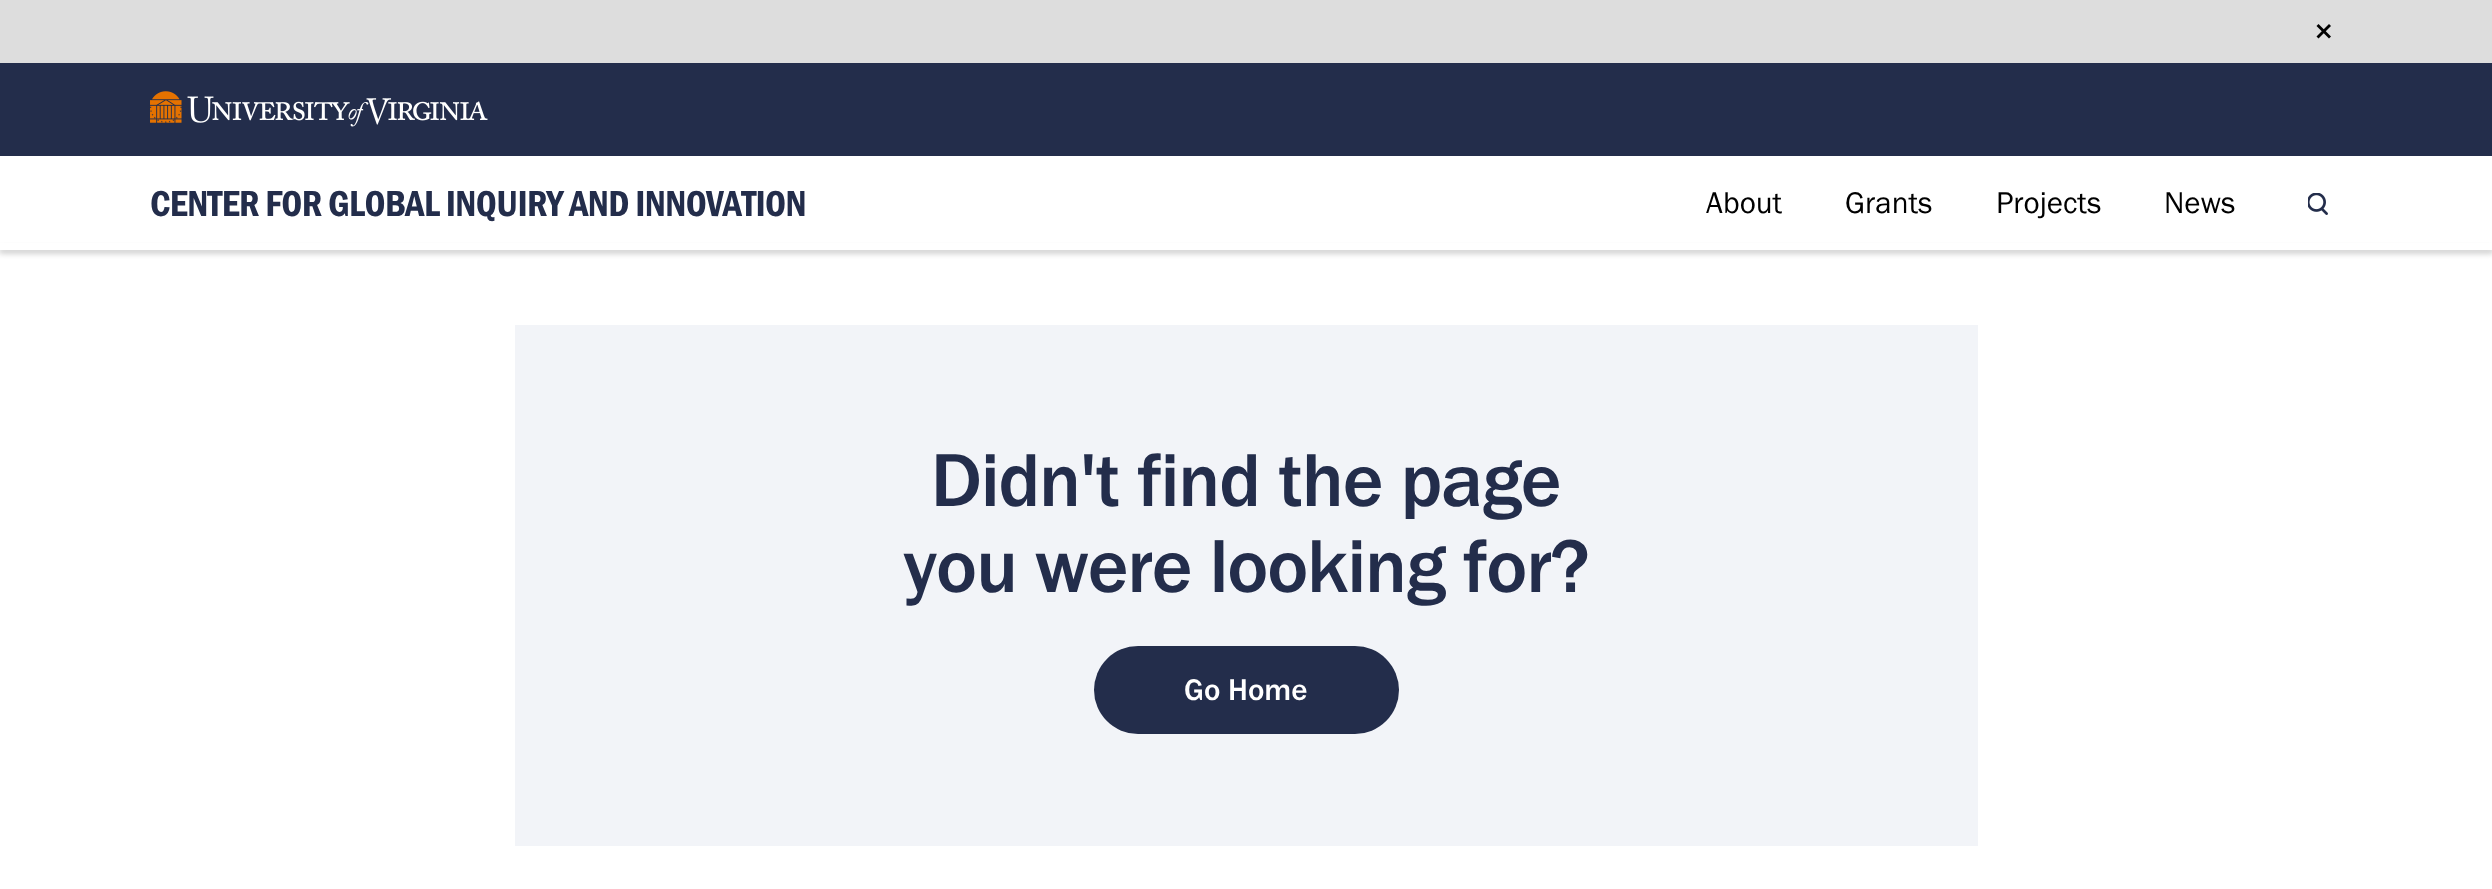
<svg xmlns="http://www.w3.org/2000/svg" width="2492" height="889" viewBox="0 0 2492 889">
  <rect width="100%" height="100%" fill="rgb(255,255,255)"/>
  <rect x="0" y="0" width="2492" height="63" fill="rgb(221,221,221)"/>
  <path d="M2318.5 24L2331 36.5L2329 38.5L2316.5 26Z" fill="rgb(0,0,0)"/>
  <path d="M2316.5 36.5L2329 24L2331 26L2318.5 38.5Z" fill="rgb(0,0,0)"/>
  <rect x="0" y="63" width="2492" height="93" fill="rgb(35,45,75)"/>
  <image x="150" y="91" width="338" height="36" href="pic1.png"/>
  <rect x="-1" y="249" width="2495" height="3" fill="rgba(0,0,0,0.4)" filter="blur(3px)"/>
  <rect x="0" y="243" width="2492" height="7" fill="rgb(255,255,255)"/>
  <text x="150" y="216" font-family="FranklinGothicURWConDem" font-size="37.5" letter-spacing="-0.6" fill="rgb(35,45,75)">CENTER FOR GLOBAL INQUIRY AND INNOVATION</text>
  <g font-family="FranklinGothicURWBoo" font-size="31" fill="rgb(0,0,0)">
    <text x="1706" y="213">About</text>
    <text x="1845" y="213">Grants</text>
    <text x="1996" y="213">Projects</text>
    <text x="2164" y="213">News</text>
  </g>
  <image x="2308" y="193" width="20" height="22" href="pic2.png"/>
  <rect x="515" y="325" width="1463" height="521" fill="rgb(242,244,248)"/>
  <g font-family="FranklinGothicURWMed" font-size="77.75" letter-spacing="-1.25" fill="rgb(35,45,75)">
    <text x="931" y="506">Didn't find the page</text>
    <text x="903" y="592">you were looking for?</text>
  </g>
  <rect x="1094" y="646" width="305" height="88" rx="44" fill="rgb(35,45,75)"/>
  <text x="1184" y="700" font-family="FranklinGothicURWMed" font-size="31" fill="rgb(255,255,255)">Go Home</text>
</svg>
